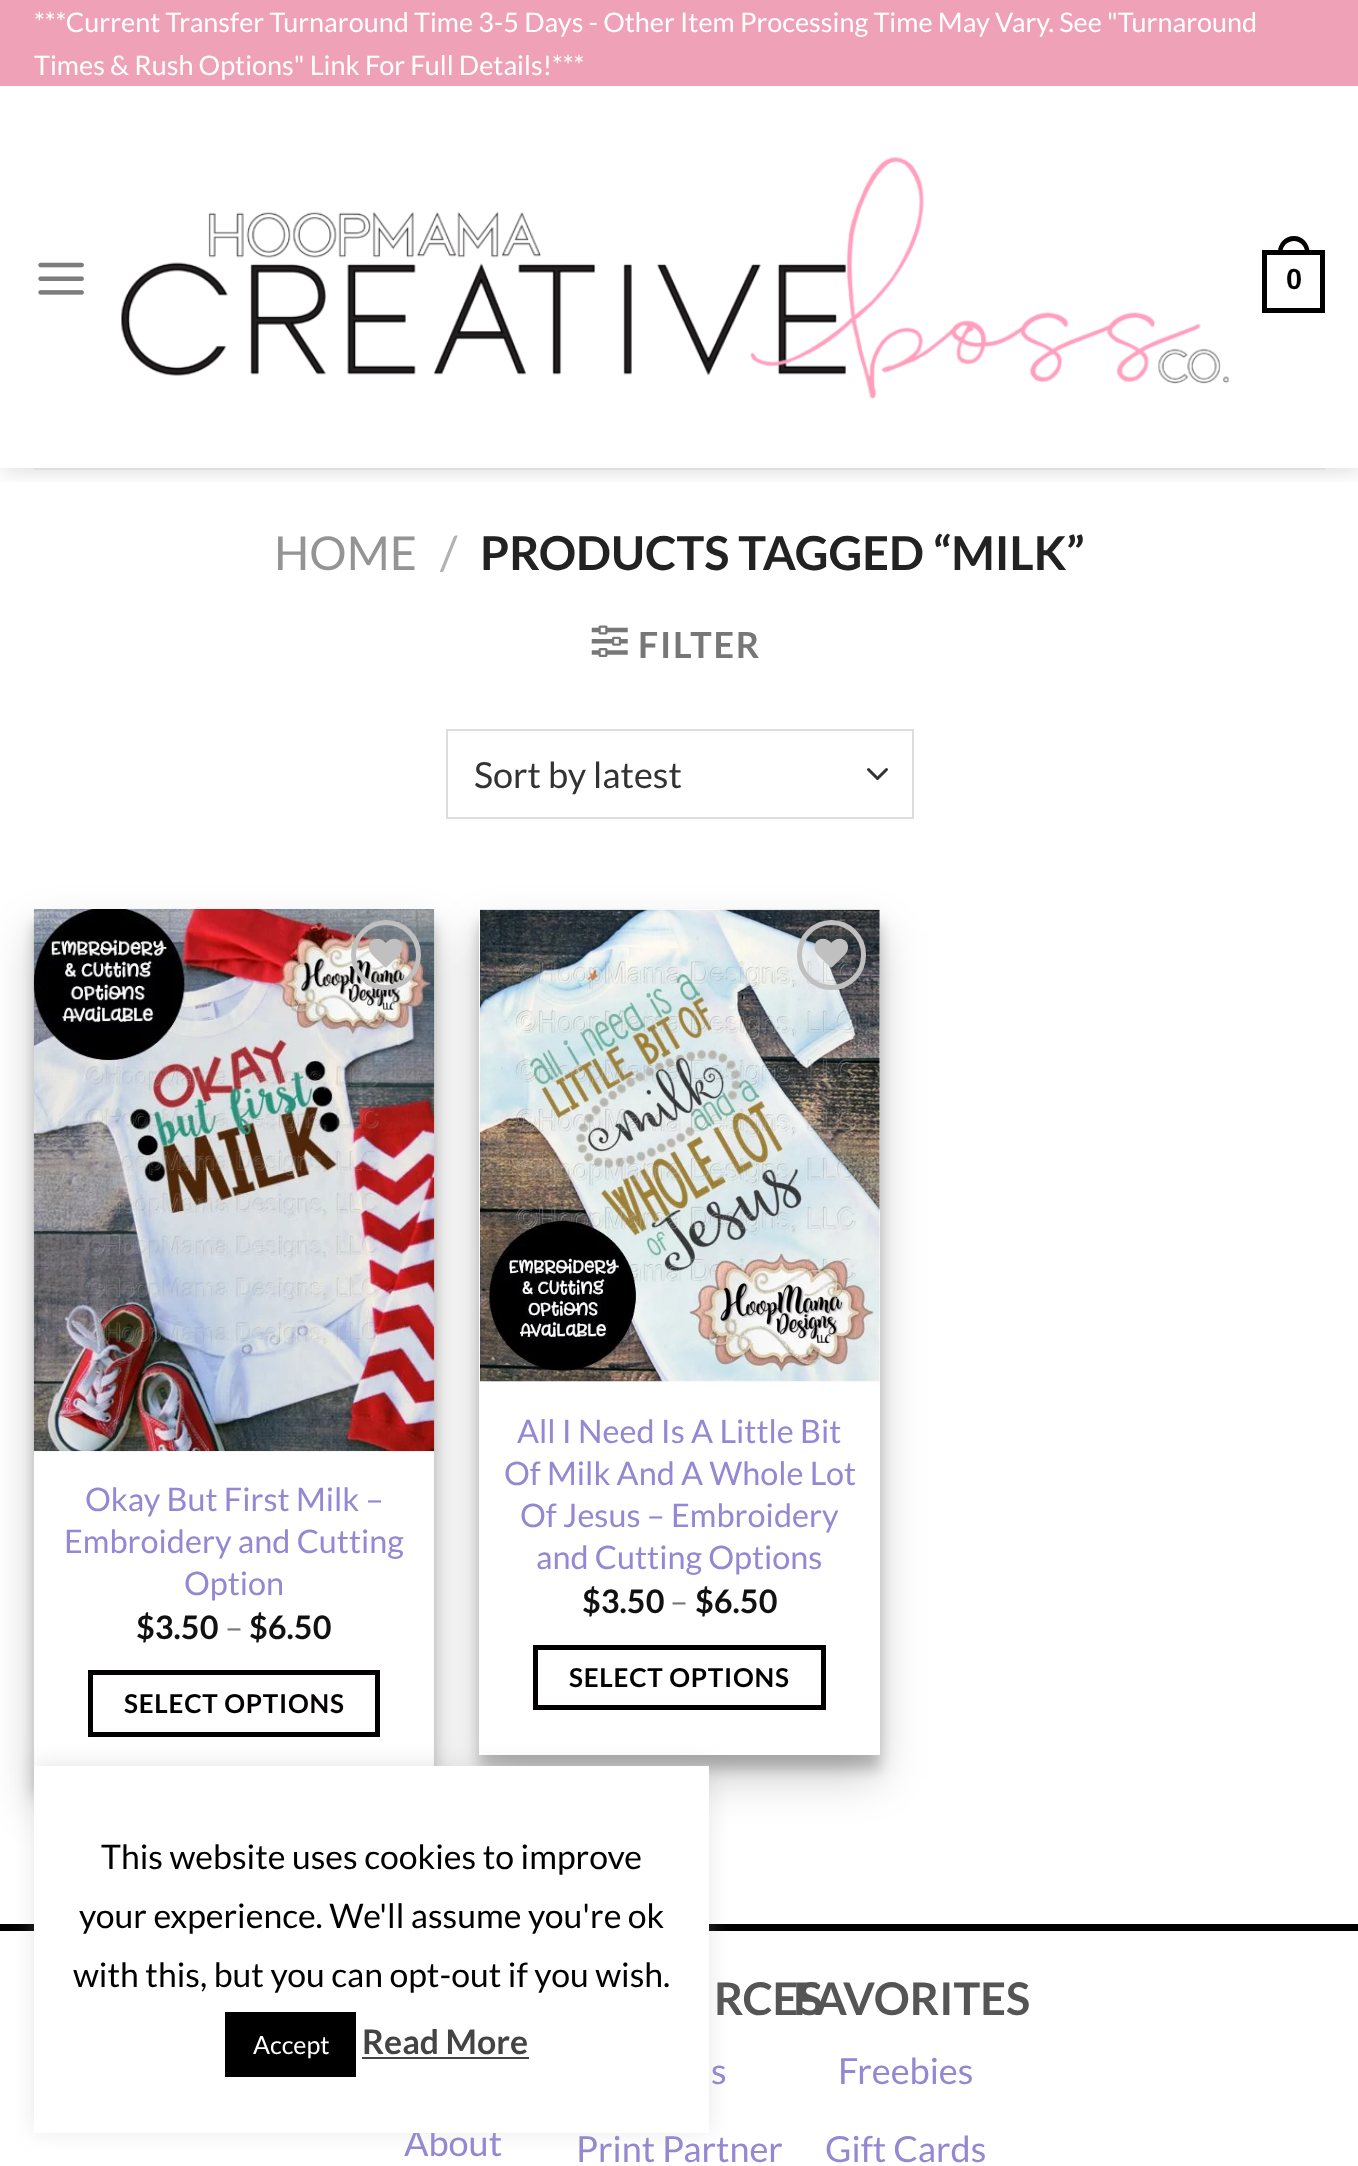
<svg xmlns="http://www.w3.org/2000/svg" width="1358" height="2166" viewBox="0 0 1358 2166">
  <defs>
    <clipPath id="clip1"><rect x="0" y="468" width="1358" height="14"/></clipPath>
    <clipPath id="clip2"><path d="M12 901H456V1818H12ZM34 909H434V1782H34Z" clip-rule="evenodd"/></clipPath>
    <clipPath id="clip3"><path d="M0 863H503V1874H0ZM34 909H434V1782H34Z" clip-rule="evenodd"/></clipPath>
  </defs>
  <rect width="100%" height="100%" fill="rgb(255,255,255)"/>
  <g clip-path="url(#clip1)">
    <rect x="2" y="2" width="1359" height="468" fill="rgba(0,0,0,0.15)" filter="blur(11px)"/>
  </g>
  <rect x="0" y="0" width="1358" height="86" fill="rgb(239,162,183)"/>
  <g font-family="Lato" font-size="27" fill="rgb(255,255,255)">
    <text>
      <tspan x="34" y="32">***Current Transfer Turnaround Time 3-5 Days - Other Item Processing Time May Vary. See "Turnaround</tspan>
      <tspan x="34" y="75">Times &amp; Rush Options" Link For Full Details!***</tspan>
    </text>
  </g>
  <image x="38" y="262" width="46" height="33" href="pic1.png"/>
  <image x="121" y="157" width="1108" height="242" href="pic2.png"/>
  <rect x="1264.5" y="252.5" width="58" height="58" fill="none" stroke="rgb(2,0,0)" stroke-width="5"/>
  <path d="M1294 236C1302.5 236 1309.5 243.5 1309.5 252V254H1278V252C1278 243.5 1285 236 1294 236ZM1294 241C1300 241 1305 246 1305 252V254H1282.5V252C1282.5 246 1287.5 241 1294 241Z" fill="rgb(2,0,0)" fill-rule="evenodd"/>
  <text x="1286" y="289" font-family="Liberation Sans" font-size="29" font-weight="bold" fill="rgb(2,0,0)">0</text>
  <rect x="34" y="468" width="1291" height="2" fill="rgb(223,223,223)"/>
  <text x="274" y="570" font-family="Lato" font-size="46.75" fill="rgb(148,148,148)">HOME</text>
  <text x="440" y="570" font-family="Lato" font-size="46.75" fill="rgb(178,178,178)">/</text>
  <text x="480" y="570" font-family="Lato" font-size="46.75" font-weight="bold" fill="rgb(34,34,34)">PRODUCTS TAGGED “MILK”</text>
  <image x="591" y="625" width="37" height="32" href="pic3.png"/>
  <text x="638" y="658" font-family="Lato" font-size="36" font-weight="bold" letter-spacing="1.75" fill="rgb(119,119,119)">FILTER</text>
  <path d="M868.5 769.5L877.5 778.5L886.5 769.5" fill="none" stroke="rgb(51,51,51)" stroke-width="3" stroke-linecap="round" stroke-linejoin="round"/>
  <rect x="447" y="730" width="466" height="88" fill="none" stroke="rgb(221,221,221)" stroke-width="2"/>
  <text x="474" y="788" font-family="Lato" font-size="36" fill="rgb(51,51,51)">Sort by latest</text>
  <g clip-path="url(#clip2)">
    <rect x="34" y="923" width="400" height="873" fill="rgba(0,0,0,0.22)" filter="blur(7px)"/>
  </g>
  <g clip-path="url(#clip3)">
    <rect x="34" y="932" width="400" height="873" fill="rgba(0,0,0,0.19)" filter="blur(22.5px)"/>
  </g>
  <image x="33" y="909" width="402" height="543" href="pic4.png"/>
  <circle cx="386" cy="955" r="32.5" fill="none" stroke="rgb(192,192,192)" stroke-width="5"/>
  <image x="369" y="938" width="34" height="30" href="pic5.png"/>
  <g font-family="Lato" font-size="32.4" fill="rgb(149,135,209)">
    <text x="85" y="1511">Okay But First Milk –</text>
    <text x="64" y="1553">Embroidery and Cutting</text>
    <text x="184" y="1595">Option</text>
  </g>
  <text x="136" y="1639" font-family="Lato" font-size="32.4" font-weight="bold" fill="rgb(17,17,17)">$3.50</text>
  <text x="225" y="1639" font-family="Lato" font-size="32.4" fill="rgb(119,119,119)">–</text>
  <text x="249" y="1639" font-family="Lato" font-size="32.4" font-weight="bold" fill="rgb(17,17,17)">$6.50</text>
  <rect x="90.5" y="1672.5" width="287" height="62" fill="none" stroke="rgb(2,0,0)" stroke-width="5"/>
  <text x="124" y="1713" font-family="Lato" font-size="26" font-weight="bold" letter-spacing="0.75" fill="rgb(2,0,0)">SELECT OPTIONS</text>
  <rect x="479" y="923" width="401" height="846" fill="rgba(0,0,0,0.22)" filter="blur(7px)"/>
  <rect x="479" y="932" width="401" height="846" fill="rgba(0,0,0,0.19)" filter="blur(22.5px)"/>
  <rect x="479" y="909" width="401" height="846" fill="rgb(255,255,255)"/>
  <image x="479" y="909" width="401" height="473" href="pic6.png"/>
  <rect x="799.5" y="922.5" width="64" height="65" rx="32" fill="none" stroke="rgb(192,192,192)" stroke-width="5"/>
  <image x="814" y="938" width="34" height="30" href="pic7.png"/>
  <g font-family="Lato" font-size="32.4" fill="rgb(149,135,209)">
    <text x="517" y="1443">All I Need Is A Little Bit</text>
    <text x="504" y="1485">Of Milk And A Whole Lot</text>
    <text x="520" y="1527">Of Jesus – Embroidery</text>
    <text x="536" y="1569">and Cutting Options</text>
  </g>
  <text x="582" y="1613" font-family="Lato" font-size="32.4" font-weight="bold" fill="rgb(17,17,17)">$3.50</text>
  <text x="670" y="1613" font-family="Lato" font-size="32.4" fill="rgb(119,119,119)">–</text>
  <text x="695" y="1613" font-family="Lato" font-size="32.4" font-weight="bold" fill="rgb(17,17,17)">$6.50</text>
  <rect x="535.5" y="1647.5" width="288" height="60" fill="none" stroke="rgb(2,0,0)" stroke-width="5"/>
  <text x="569" y="1687" font-family="Lato" font-size="26" font-weight="bold" letter-spacing="0.75" fill="rgb(2,0,0)">SELECT OPTIONS</text>
  <rect x="0" y="1924" width="1358" height="7" fill="rgb(0,0,0)"/>
  <text x="404" y="2156" font-family="Lato" font-size="36" fill="rgb(149,135,209)">About</text>
  <text x="714" y="2015" font-family="Lato" font-size="45" font-weight="bold" fill="rgb(85,85,85)">RCES</text>
  <g font-family="Lato" font-size="36" fill="rgb(149,135,209)">
    <text x="711" y="2084">s</text>
    <text x="576" y="2162">Print Partner</text>
  </g>
  <text x="793" y="2015" font-family="Lato" font-size="45" font-weight="bold" fill="rgb(85,85,85)">FAVORITES</text>
  <g font-family="Lato" font-size="36" fill="rgb(149,135,209)">
    <text x="838" y="2084">Freebies</text>
    <text x="825" y="2162">Gift Cards</text>
  </g>
  <rect x="34" y="1764" width="675" height="367" fill="rgba(172,171,171,0.3)" filter="blur(11px)"/>
  <rect x="34" y="1766" width="675" height="367" fill="rgb(255,255,255)"/>
  <g font-family="Lato" font-size="33.75" fill="rgb(2,0,0)">
    <text x="101" y="1869">This website uses cookies to improve</text>
    <text x="79" y="1928">your experience. We'll assume you're ok</text>
    <text x="73" y="1987">with this, but you can opt-out if you wish.</text>
  </g>
  <rect x="225" y="2012" width="131" height="65" fill="rgb(0,0,0)"/>
  <text x="253" y="2054" font-family="Lato" font-size="25" fill="rgb(255,255,255)">Accept</text>
  <text x="362" y="2054" font-family="Lato" font-size="33.75" font-weight="bold" fill="rgb(68,68,68)">Read More</text>
  <rect x="362" y="2057" width="167" height="2" fill="rgb(68,68,68)"/>
</svg>
